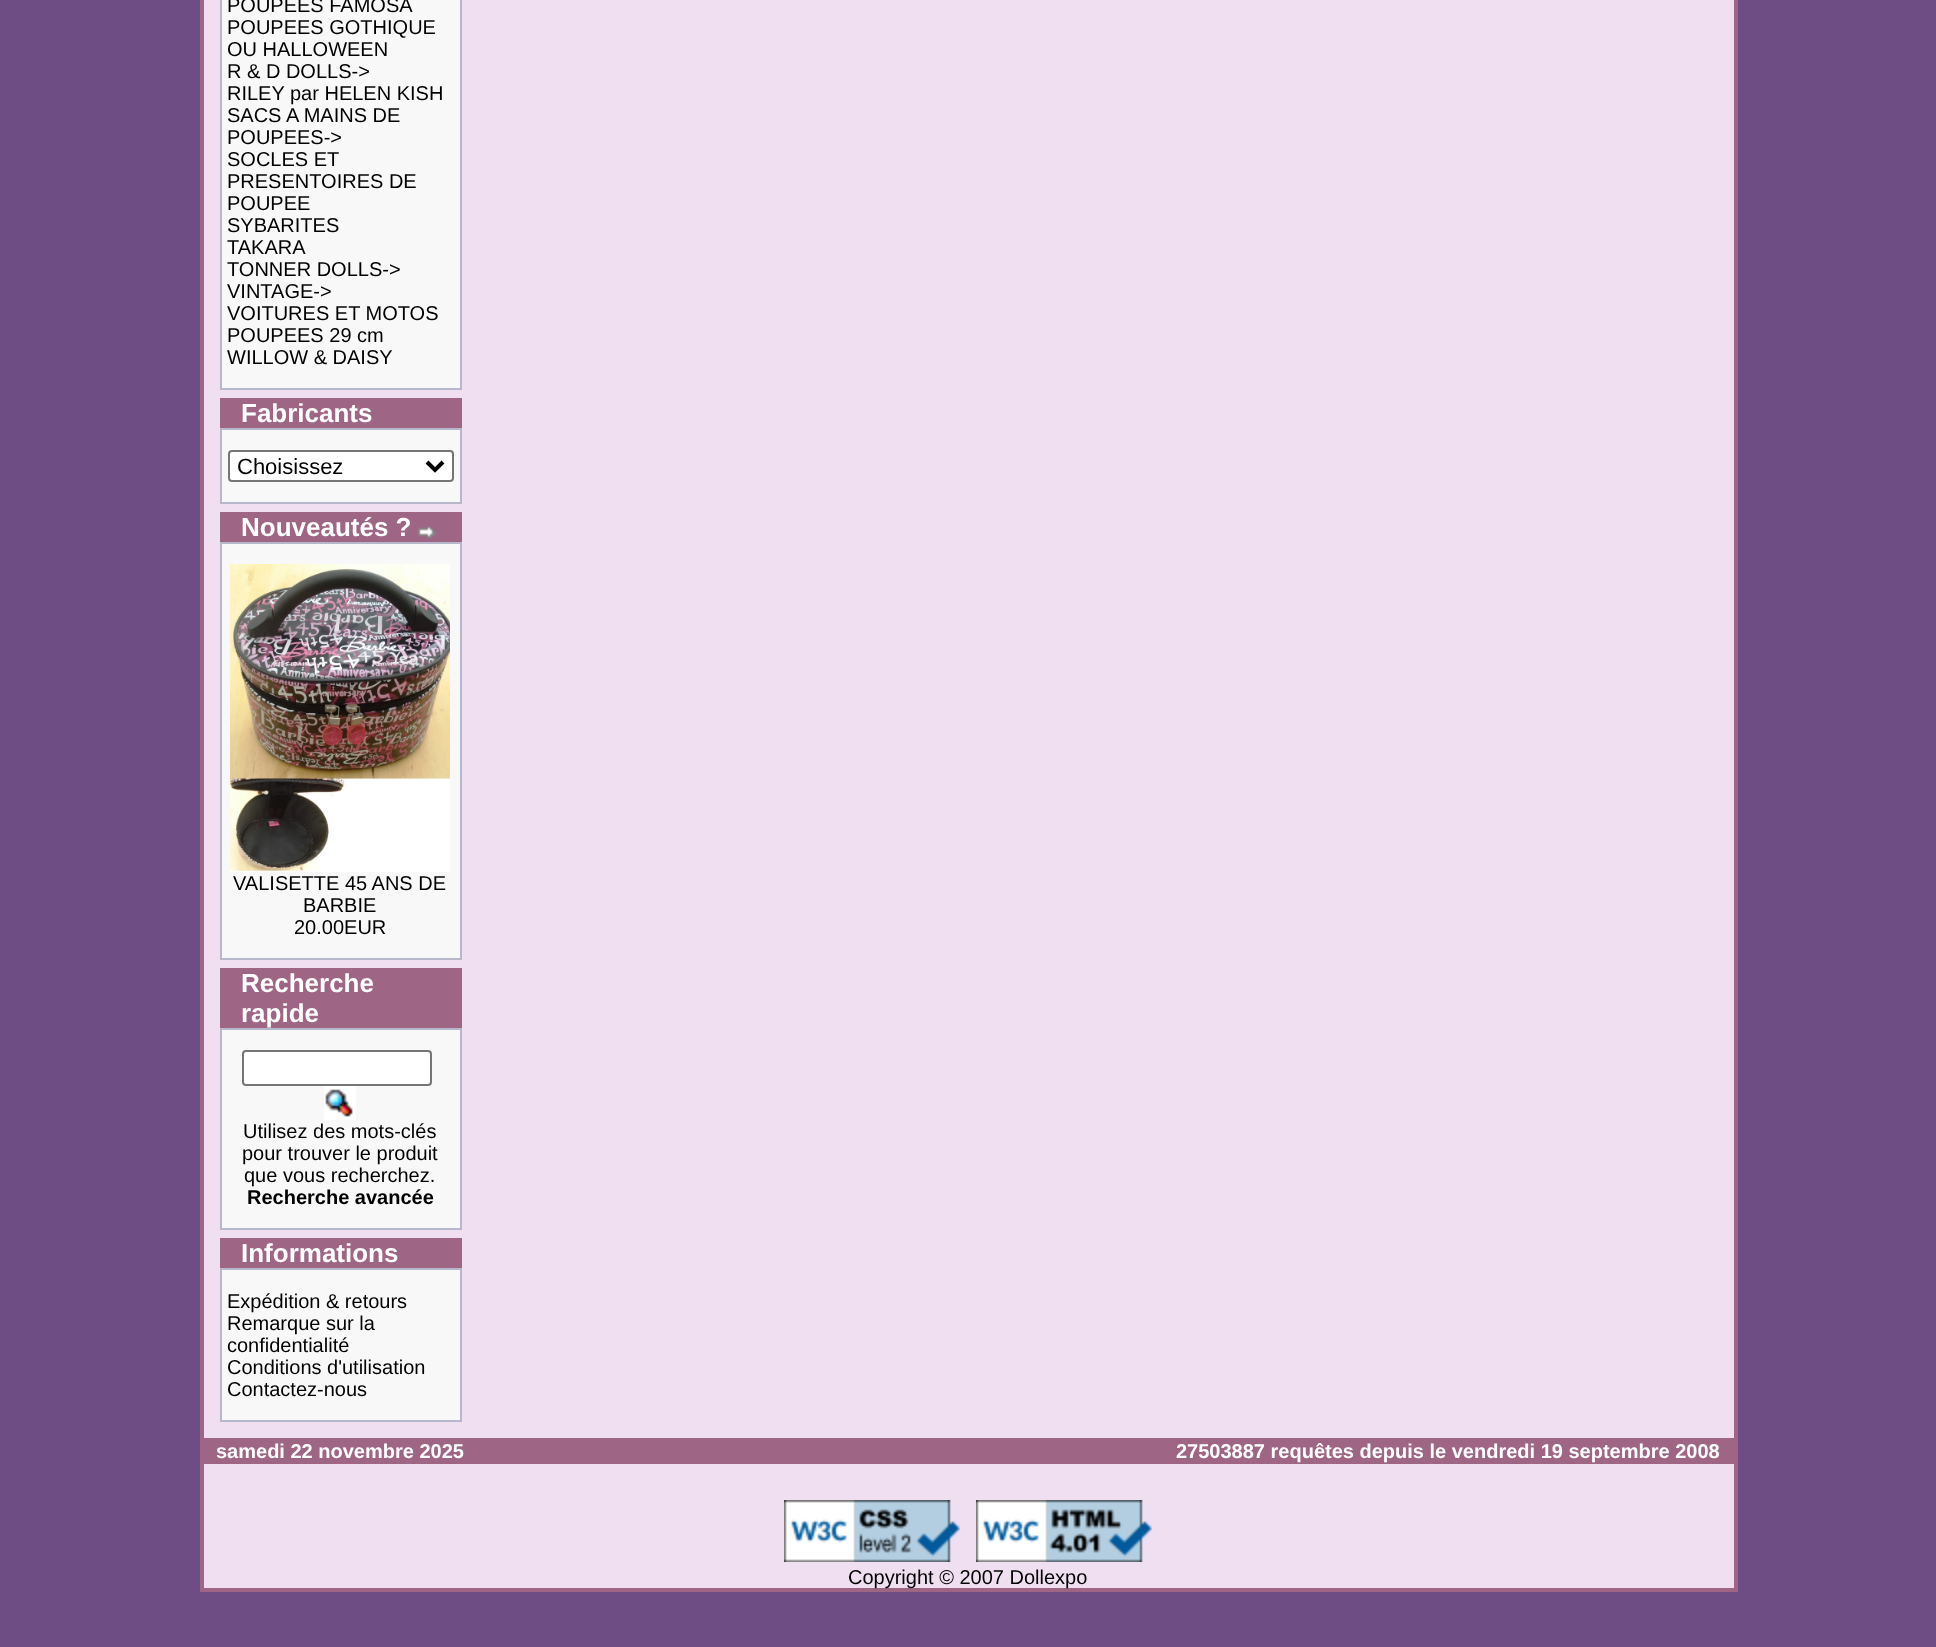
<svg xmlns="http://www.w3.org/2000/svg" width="1936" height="1647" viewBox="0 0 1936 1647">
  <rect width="100%" height="100%" fill="rgb(109,77,132)"/>
  <rect x="202" y="-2" width="1534" height="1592" fill="rgb(240,223,240)" stroke="rgb(158,101,133)" stroke-width="4"/>
  <rect x="220" y="0" width="242" height="390" fill="rgb(182,183,203)"/>
  <rect x="222" y="0" width="238" height="388" fill="rgb(248,248,249)"/>
  <g font-family="Liberation Sans" font-size="20" fill="rgb(0,0,0)">
    <text>
      <tspan x="227" y="12">POUPEES FAMOSA</tspan>
      <tspan x="227" y="34">POUPEES GOTHIQUE</tspan>
      <tspan x="227" y="56">OU HALLOWEEN</tspan>
      <tspan x="227" y="78">R &amp; D DOLLS-&gt;</tspan>
      <tspan x="227" y="100">RILEY par HELEN KISH</tspan>
      <tspan x="227" y="122">SACS A MAINS DE</tspan>
      <tspan x="227" y="144">POUPEES-&gt;</tspan>
      <tspan x="227" y="166">SOCLES ET</tspan>
      <tspan x="227" y="188">PRESENTOIRES DE</tspan>
      <tspan x="227" y="210">POUPEE</tspan>
      <tspan x="227" y="232">SYBARITES</tspan>
      <tspan x="227" y="254">TAKARA</tspan>
      <tspan x="227" y="276">TONNER DOLLS-&gt;</tspan>
      <tspan x="227" y="298">VINTAGE-&gt;</tspan>
      <tspan x="227" y="320">VOITURES ET MOTOS</tspan>
      <tspan x="227" y="342">POUPEES 29 cm</tspan>
      <tspan x="227" y="364">WILLOW &amp; DAISY</tspan>
    </text>
  </g>
  <rect x="220" y="398" width="242" height="30" fill="rgb(158,101,133)"/>
  <text x="241" y="422" font-family="Liberation Sans" font-size="26" font-weight="bold" fill="rgb(255,255,255)">Fabricants</text>
  <rect x="220" y="428" width="242" height="76" fill="rgb(182,183,203)"/>
  <rect x="222" y="430" width="238" height="72" fill="rgb(248,248,249)"/>
  <rect x="229" y="451" width="224" height="30" rx="3" fill="rgb(255,255,255)" stroke="rgb(118,118,118)" stroke-width="2"/>
  <path d="M427 462L435 470L443 462" fill="none" stroke="rgb(0,0,0)" stroke-width="4"/>
  <text x="237" y="474" font-family="Liberation Sans" font-size="22" fill="rgb(0,0,0)">Choisissez</text>
  <rect x="220" y="512" width="242" height="30" fill="rgb(158,101,133)"/>
  <text x="241" y="536" font-family="Liberation Sans" font-size="26" font-weight="bold" fill="rgb(255,255,255)">Nouveautés ?</text>
  <image x="417" y="525" width="20" height="14" href="pic1.png"/>
  <rect x="220" y="542" width="242" height="418" fill="rgb(182,183,203)"/>
  <rect x="222" y="544" width="238" height="414" fill="rgb(248,248,249)"/>
  <image x="230" y="564" width="220" height="308" href="pic2.png"/>
  <g font-family="Liberation Sans" font-size="20" fill="rgb(0,0,0)">
    <text x="233" y="890">VALISETTE 45 ANS DE</text>
    <text x="303" y="912">BARBIE</text>
    <text x="294" y="934">20.00EUR</text>
  </g>
  <rect x="220" y="968" width="242" height="60" fill="rgb(158,101,133)"/>
  <g font-family="Liberation Sans" font-size="26" font-weight="bold" fill="rgb(255,255,255)">
    <text>
      <tspan x="241" y="992">Recherche</tspan>
      <tspan x="241" y="1022">rapide</tspan>
    </text>
  </g>
  <rect x="220" y="1028" width="242" height="202" fill="rgb(182,183,203)"/>
  <rect x="222" y="1030" width="238" height="198" fill="rgb(248,248,249)"/>
  <rect x="243" y="1051" width="188" height="34" rx="3" fill="rgb(255,255,255)" stroke="rgb(118,118,118)" stroke-width="2"/>
  <image x="324" y="1086" width="32" height="34" href="pic3.png"/>
  <g font-family="Liberation Sans" font-size="20" fill="rgb(0,0,0)">
    <text x="243" y="1138">Utilisez des mots-clés</text>
    <text x="242" y="1160">pour trouver le produit</text>
    <text x="244" y="1182">que vous recherchez.</text>
  </g>
  <text x="247" y="1204" font-family="Liberation Sans" font-size="20" font-weight="bold" fill="rgb(0,0,0)">Recherche avancée</text>
  <rect x="220" y="1238" width="242" height="30" fill="rgb(158,101,133)"/>
  <text x="241" y="1262" font-family="Liberation Sans" font-size="26" font-weight="bold" fill="rgb(255,255,255)">Informations</text>
  <rect x="220" y="1268" width="242" height="154" fill="rgb(182,183,203)"/>
  <rect x="222" y="1270" width="238" height="150" fill="rgb(248,248,249)"/>
  <g font-family="Liberation Sans" font-size="20" fill="rgb(0,0,0)">
    <text>
      <tspan x="227" y="1308">Expédition &amp; retours</tspan>
      <tspan x="227" y="1330">Remarque sur la</tspan>
      <tspan x="227" y="1352">confidentialité</tspan>
      <tspan x="227" y="1374">Conditions d'utilisation</tspan>
      <tspan x="227" y="1396">Contactez-nous</tspan>
    </text>
  </g>
  <rect x="204" y="1438" width="1530" height="26" fill="rgb(158,101,133)"/>
  <g font-family="Liberation Sans" font-size="20" font-weight="bold" fill="rgb(255,255,255)">
    <text x="216" y="1458">samedi 22 novembre 2025</text>
    <text x="1176" y="1458">27503887 requêtes depuis le vendredi 19 septembre 2008</text>
  </g>
  <image x="784" y="1500" width="176" height="62" href="pic4.png"/>
  <image x="976" y="1500" width="176" height="62" href="pic5.png"/>
  <text x="848" y="1584" font-family="Liberation Sans" font-size="20" fill="rgb(0,0,0)">Copyright © 2007 Dollexpo</text>
</svg>
